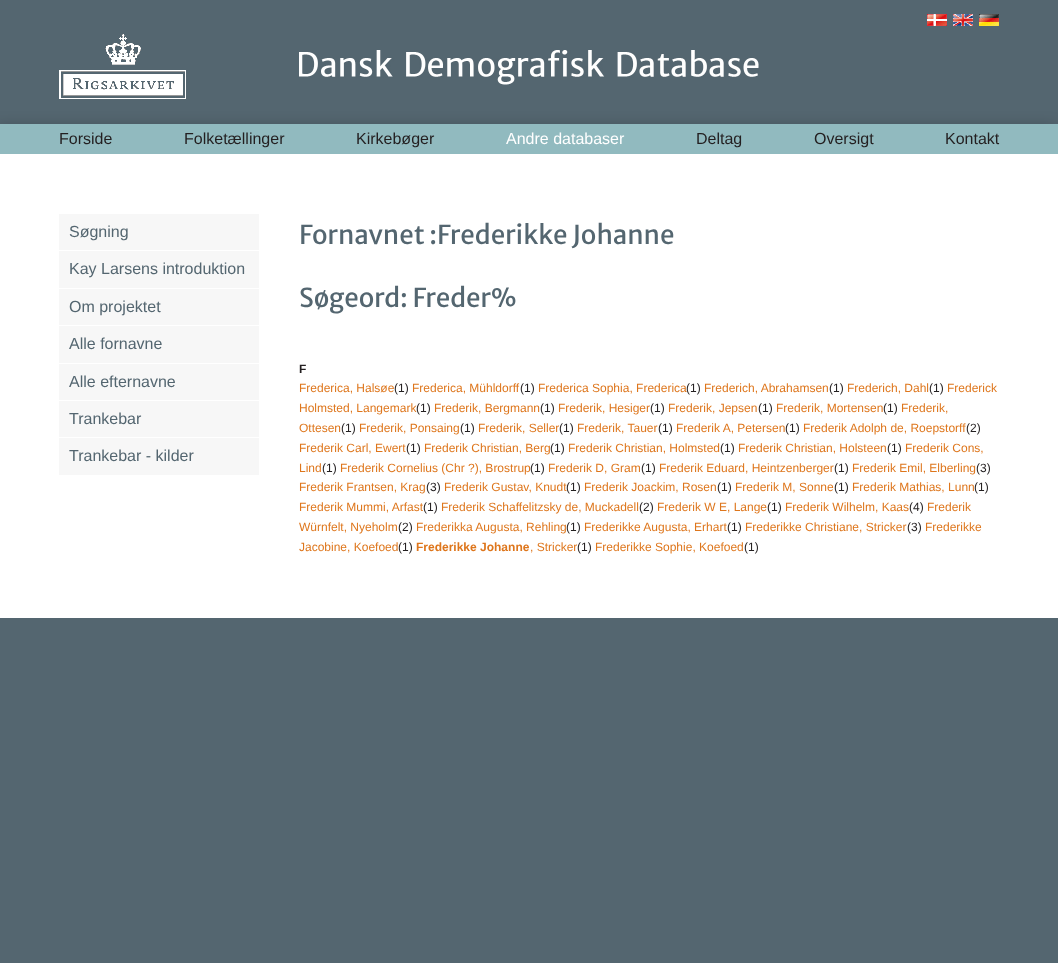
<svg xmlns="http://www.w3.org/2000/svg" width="1058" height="963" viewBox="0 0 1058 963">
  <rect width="100%" height="100%" fill="rgb(84,102,112)"/>
  <image x="927" y="14" width="20" height="12" href="pic1.png"/>
  <image x="953" y="14" width="20" height="12" href="pic2.png"/>
  <image x="979" y="14" width="20" height="12" href="pic3.png"/>
  <image x="59" y="34" width="127" height="65" href="pic4.png"/>
  <image x="299" y="50" width="460" height="35" href="pic5.png"/>
  <rect x="-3" y="124" width="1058" height="30" fill="rgba(0,0,0,0.16)" filter="blur(6.5px)"/>
  <rect x="0" y="124" width="1058" height="30" fill="rgb(145,186,191)"/>
  <g font-family="Liberation Sans" font-size="16" fill="rgb(35,31,32)">
    <text x="59" y="144">Forside</text>
    <text x="184" y="144">Folketællinger</text>
    <text x="356" y="144">Kirkebøger</text>
  </g>
  <text x="506" y="144" font-family="Liberation Sans" font-size="16" fill="rgb(255,255,255)">Andre databaser</text>
  <g font-family="Liberation Sans" font-size="16" fill="rgb(35,31,32)">
    <text x="696" y="144">Deltag</text>
    <text x="814" y="144">Oversigt</text>
    <text x="945" y="144">Kontakt</text>
  </g>
  <rect x="0" y="154" width="1058" height="464" fill="rgb(255,255,255)"/>
  <rect x="59" y="214" width="200" height="36" fill="rgb(247,247,247)"/>
  <text x="69" y="237" font-family="Liberation Sans" font-size="16" fill="rgb(84,102,112)">Søgning</text>
  <rect x="59" y="251" width="200" height="37" fill="rgb(247,247,247)"/>
  <text x="69" y="274" font-family="Liberation Sans" font-size="16" fill="rgb(84,102,112)">Kay Larsens introduktion</text>
  <rect x="59" y="289" width="200" height="36" fill="rgb(247,247,247)"/>
  <text x="69" y="312" font-family="Liberation Sans" font-size="16" fill="rgb(84,102,112)">Om projektet</text>
  <rect x="59" y="326" width="200" height="37" fill="rgb(247,247,247)"/>
  <text x="69" y="349" font-family="Liberation Sans" font-size="16" fill="rgb(84,102,112)">Alle fornavne</text>
  <rect x="59" y="364" width="200" height="36" fill="rgb(247,247,247)"/>
  <text x="69" y="387" font-family="Liberation Sans" font-size="16" fill="rgb(84,102,112)">Alle efternavne</text>
  <rect x="59" y="401" width="200" height="36" fill="rgb(247,247,247)"/>
  <text x="69" y="424" font-family="Liberation Sans" font-size="16" fill="rgb(84,102,112)">Trankebar</text>
  <rect x="59" y="438" width="200" height="37" fill="rgb(247,247,247)"/>
  <text x="69" y="461" font-family="Liberation Sans" font-size="16" fill="rgb(84,102,112)">Trankebar - kilder</text>
  <g font-family="Merriweather Sans" font-size="26" fill="rgb(84,102,112)">
    <text x="299" y="244">Fornavnet :Frederikke Johanne</text>
    <text x="299" y="307">Søgeord: Freder%</text>
  </g>
  <text x="299" y="373" font-family="Liberation Sans" font-size="12" font-weight="bold" fill="rgb(35,31,32)">F</text>
  <text x="299" y="392" font-family="Liberation Sans" font-size="12" fill="rgb(222,118,28)">Frederica, Halsøe</text>
  <text x="394" y="392" font-family="Liberation Sans" font-size="12" fill="rgb(35,31,32)">(1)</text>
  <text x="412" y="392" font-family="Liberation Sans" font-size="12" fill="rgb(222,118,28)">Frederica, Mühldorff</text>
  <text x="520" y="392" font-family="Liberation Sans" font-size="12" fill="rgb(35,31,32)">(1)</text>
  <text x="538" y="392" font-family="Liberation Sans" font-size="12" fill="rgb(222,118,28)">Frederica Sophia, Frederica</text>
  <text x="686" y="392" font-family="Liberation Sans" font-size="12" fill="rgb(35,31,32)">(1)</text>
  <text x="704" y="392" font-family="Liberation Sans" font-size="12" fill="rgb(222,118,28)">Frederich, Abrahamsen</text>
  <text x="829" y="392" font-family="Liberation Sans" font-size="12" fill="rgb(35,31,32)">(1)</text>
  <text x="847" y="392" font-family="Liberation Sans" font-size="12" fill="rgb(222,118,28)">Frederich, Dahl</text>
  <text x="929" y="392" font-family="Liberation Sans" font-size="12" fill="rgb(35,31,32)">(1)</text>
  <g font-family="Liberation Sans" font-size="12" fill="rgb(222,118,28)">
    <text x="947" y="392">Frederick</text>
    <text x="299" y="412">Holmsted, Langemark</text>
  </g>
  <text x="416" y="412" font-family="Liberation Sans" font-size="12" fill="rgb(35,31,32)">(1)</text>
  <text x="434" y="412" font-family="Liberation Sans" font-size="12" fill="rgb(222,118,28)">Frederik, Bergmann</text>
  <text x="540" y="412" font-family="Liberation Sans" font-size="12" fill="rgb(35,31,32)">(1)</text>
  <text x="558" y="412" font-family="Liberation Sans" font-size="12" fill="rgb(222,118,28)">Frederik, Hesiger</text>
  <text x="650" y="412" font-family="Liberation Sans" font-size="12" fill="rgb(35,31,32)">(1)</text>
  <text x="668" y="412" font-family="Liberation Sans" font-size="12" fill="rgb(222,118,28)">Frederik, Jepsen</text>
  <text x="758" y="412" font-family="Liberation Sans" font-size="12" fill="rgb(35,31,32)">(1)</text>
  <text x="776" y="412" font-family="Liberation Sans" font-size="12" fill="rgb(222,118,28)">Frederik, Mortensen</text>
  <text x="883" y="412" font-family="Liberation Sans" font-size="12" fill="rgb(35,31,32)">(1)</text>
  <g font-family="Liberation Sans" font-size="12" fill="rgb(222,118,28)">
    <text x="901" y="412">Frederik,</text>
    <text x="299" y="432">Ottesen</text>
  </g>
  <text x="341" y="432" font-family="Liberation Sans" font-size="12" fill="rgb(35,31,32)">(1)</text>
  <text x="359" y="432" font-family="Liberation Sans" font-size="12" fill="rgb(222,118,28)">Frederik, Ponsaing</text>
  <text x="460" y="432" font-family="Liberation Sans" font-size="12" fill="rgb(35,31,32)">(1)</text>
  <text x="478" y="432" font-family="Liberation Sans" font-size="12" fill="rgb(222,118,28)">Frederik, Seller</text>
  <text x="559" y="432" font-family="Liberation Sans" font-size="12" fill="rgb(35,31,32)">(1)</text>
  <text x="577" y="432" font-family="Liberation Sans" font-size="12" fill="rgb(222,118,28)">Frederik, Tauer</text>
  <text x="658" y="432" font-family="Liberation Sans" font-size="12" fill="rgb(35,31,32)">(1)</text>
  <text x="676" y="432" font-family="Liberation Sans" font-size="12" fill="rgb(222,118,28)">Frederik A, Petersen</text>
  <text x="785" y="432" font-family="Liberation Sans" font-size="12" fill="rgb(35,31,32)">(1)</text>
  <text x="803" y="432" font-family="Liberation Sans" font-size="12" fill="rgb(222,118,28)">Frederik Adolph de, Roepstorff</text>
  <text x="966" y="432" font-family="Liberation Sans" font-size="12" fill="rgb(35,31,32)">(2)</text>
  <text x="299" y="452" font-family="Liberation Sans" font-size="12" fill="rgb(222,118,28)">Frederik Carl, Ewert</text>
  <text x="406" y="452" font-family="Liberation Sans" font-size="12" fill="rgb(35,31,32)">(1)</text>
  <text x="424" y="452" font-family="Liberation Sans" font-size="12" fill="rgb(222,118,28)">Frederik Christian, Berg</text>
  <text x="550" y="452" font-family="Liberation Sans" font-size="12" fill="rgb(35,31,32)">(1)</text>
  <text x="568" y="452" font-family="Liberation Sans" font-size="12" fill="rgb(222,118,28)">Frederik Christian, Holmsted</text>
  <text x="720" y="452" font-family="Liberation Sans" font-size="12" fill="rgb(35,31,32)">(1)</text>
  <text x="738" y="452" font-family="Liberation Sans" font-size="12" fill="rgb(222,118,28)">Frederik Christian, Holsteen</text>
  <text x="887" y="452" font-family="Liberation Sans" font-size="12" fill="rgb(35,31,32)">(1)</text>
  <g font-family="Liberation Sans" font-size="12" fill="rgb(222,118,28)">
    <text x="905" y="452">Frederik Cons,</text>
    <text x="299" y="472">Lind</text>
  </g>
  <text x="322" y="472" font-family="Liberation Sans" font-size="12" fill="rgb(35,31,32)">(1)</text>
  <text x="340" y="472" font-family="Liberation Sans" font-size="12" fill="rgb(222,118,28)">Frederik Cornelius (Chr ?), Brostrup</text>
  <text x="530" y="472" font-family="Liberation Sans" font-size="12" fill="rgb(35,31,32)">(1)</text>
  <text x="548" y="472" font-family="Liberation Sans" font-size="12" fill="rgb(222,118,28)">Frederik D, Gram</text>
  <text x="641" y="472" font-family="Liberation Sans" font-size="12" fill="rgb(35,31,32)">(1)</text>
  <text x="659" y="472" font-family="Liberation Sans" font-size="12" fill="rgb(222,118,28)">Frederik Eduard, Heintzenberger</text>
  <text x="834" y="472" font-family="Liberation Sans" font-size="12" fill="rgb(35,31,32)">(1)</text>
  <text x="852" y="472" font-family="Liberation Sans" font-size="12" fill="rgb(222,118,28)">Frederik Emil, Elberling</text>
  <text x="976" y="472" font-family="Liberation Sans" font-size="12" fill="rgb(35,31,32)">(3)</text>
  <text x="299" y="491" font-family="Liberation Sans" font-size="12" fill="rgb(222,118,28)">Frederik Frantsen, Krag</text>
  <text x="426" y="491" font-family="Liberation Sans" font-size="12" fill="rgb(35,31,32)">(3)</text>
  <text x="444" y="491" font-family="Liberation Sans" font-size="12" fill="rgb(222,118,28)">Frederik Gustav, Knudt</text>
  <text x="566" y="491" font-family="Liberation Sans" font-size="12" fill="rgb(35,31,32)">(1)</text>
  <text x="584" y="491" font-family="Liberation Sans" font-size="12" fill="rgb(222,118,28)">Frederik Joackim, Rosen</text>
  <text x="717" y="491" font-family="Liberation Sans" font-size="12" fill="rgb(35,31,32)">(1)</text>
  <text x="735" y="491" font-family="Liberation Sans" font-size="12" fill="rgb(222,118,28)">Frederik M, Sonne</text>
  <text x="834" y="491" font-family="Liberation Sans" font-size="12" fill="rgb(35,31,32)">(1)</text>
  <text x="852" y="491" font-family="Liberation Sans" font-size="12" fill="rgb(222,118,28)">Frederik Mathias, Lunn</text>
  <text x="974" y="491" font-family="Liberation Sans" font-size="12" fill="rgb(35,31,32)">(1)</text>
  <text x="299" y="511" font-family="Liberation Sans" font-size="12" fill="rgb(222,118,28)">Frederik Mummi, Arfast</text>
  <text x="423" y="511" font-family="Liberation Sans" font-size="12" fill="rgb(35,31,32)">(1)</text>
  <text x="441" y="511" font-family="Liberation Sans" font-size="12" fill="rgb(222,118,28)">Frederik Schaffelitzsky de, Muckadell</text>
  <text x="639" y="511" font-family="Liberation Sans" font-size="12" fill="rgb(35,31,32)">(2)</text>
  <text x="657" y="511" font-family="Liberation Sans" font-size="12" fill="rgb(222,118,28)">Frederik W E, Lange</text>
  <text x="767" y="511" font-family="Liberation Sans" font-size="12" fill="rgb(35,31,32)">(1)</text>
  <text x="785" y="511" font-family="Liberation Sans" font-size="12" fill="rgb(222,118,28)">Frederik Wilhelm, Kaas</text>
  <text x="909" y="511" font-family="Liberation Sans" font-size="12" fill="rgb(35,31,32)">(4)</text>
  <g font-family="Liberation Sans" font-size="12" fill="rgb(222,118,28)">
    <text x="927" y="511">Frederik</text>
    <text x="299" y="531">Würnfelt, Nyeholm</text>
  </g>
  <text x="398" y="531" font-family="Liberation Sans" font-size="12" fill="rgb(35,31,32)">(2)</text>
  <text x="416" y="531" font-family="Liberation Sans" font-size="12" fill="rgb(222,118,28)">Frederikka Augusta, Rehling</text>
  <text x="566" y="531" font-family="Liberation Sans" font-size="12" fill="rgb(35,31,32)">(1)</text>
  <text x="584" y="531" font-family="Liberation Sans" font-size="12" fill="rgb(222,118,28)">Frederikke Augusta, Erhart</text>
  <text x="727" y="531" font-family="Liberation Sans" font-size="12" fill="rgb(35,31,32)">(1)</text>
  <text x="745" y="531" font-family="Liberation Sans" font-size="12" fill="rgb(222,118,28)">Frederikke Christiane, Stricker</text>
  <text x="907" y="531" font-family="Liberation Sans" font-size="12" fill="rgb(35,31,32)">(3)</text>
  <g font-family="Liberation Sans" font-size="12" fill="rgb(222,118,28)">
    <text x="925" y="531">Frederikke</text>
    <text x="299" y="551">Jacobine, Koefoed</text>
  </g>
  <text x="398" y="551" font-family="Liberation Sans" font-size="12" fill="rgb(35,31,32)">(1)</text>
  <text x="416" y="551" font-family="Liberation Sans" font-size="12" font-weight="bold" fill="rgb(222,118,28)">Frederikke Johanne</text>
  <text x="530" y="551" font-family="Liberation Sans" font-size="12" fill="rgb(222,118,28)">, Stricker</text>
  <text x="577" y="551" font-family="Liberation Sans" font-size="12" fill="rgb(35,31,32)">(1)</text>
  <text x="595" y="551" font-family="Liberation Sans" font-size="12" fill="rgb(222,118,28)">Frederikke Sophie, Koefoed</text>
  <text x="744" y="551" font-family="Liberation Sans" font-size="12" fill="rgb(35,31,32)">(1)</text>
</svg>
